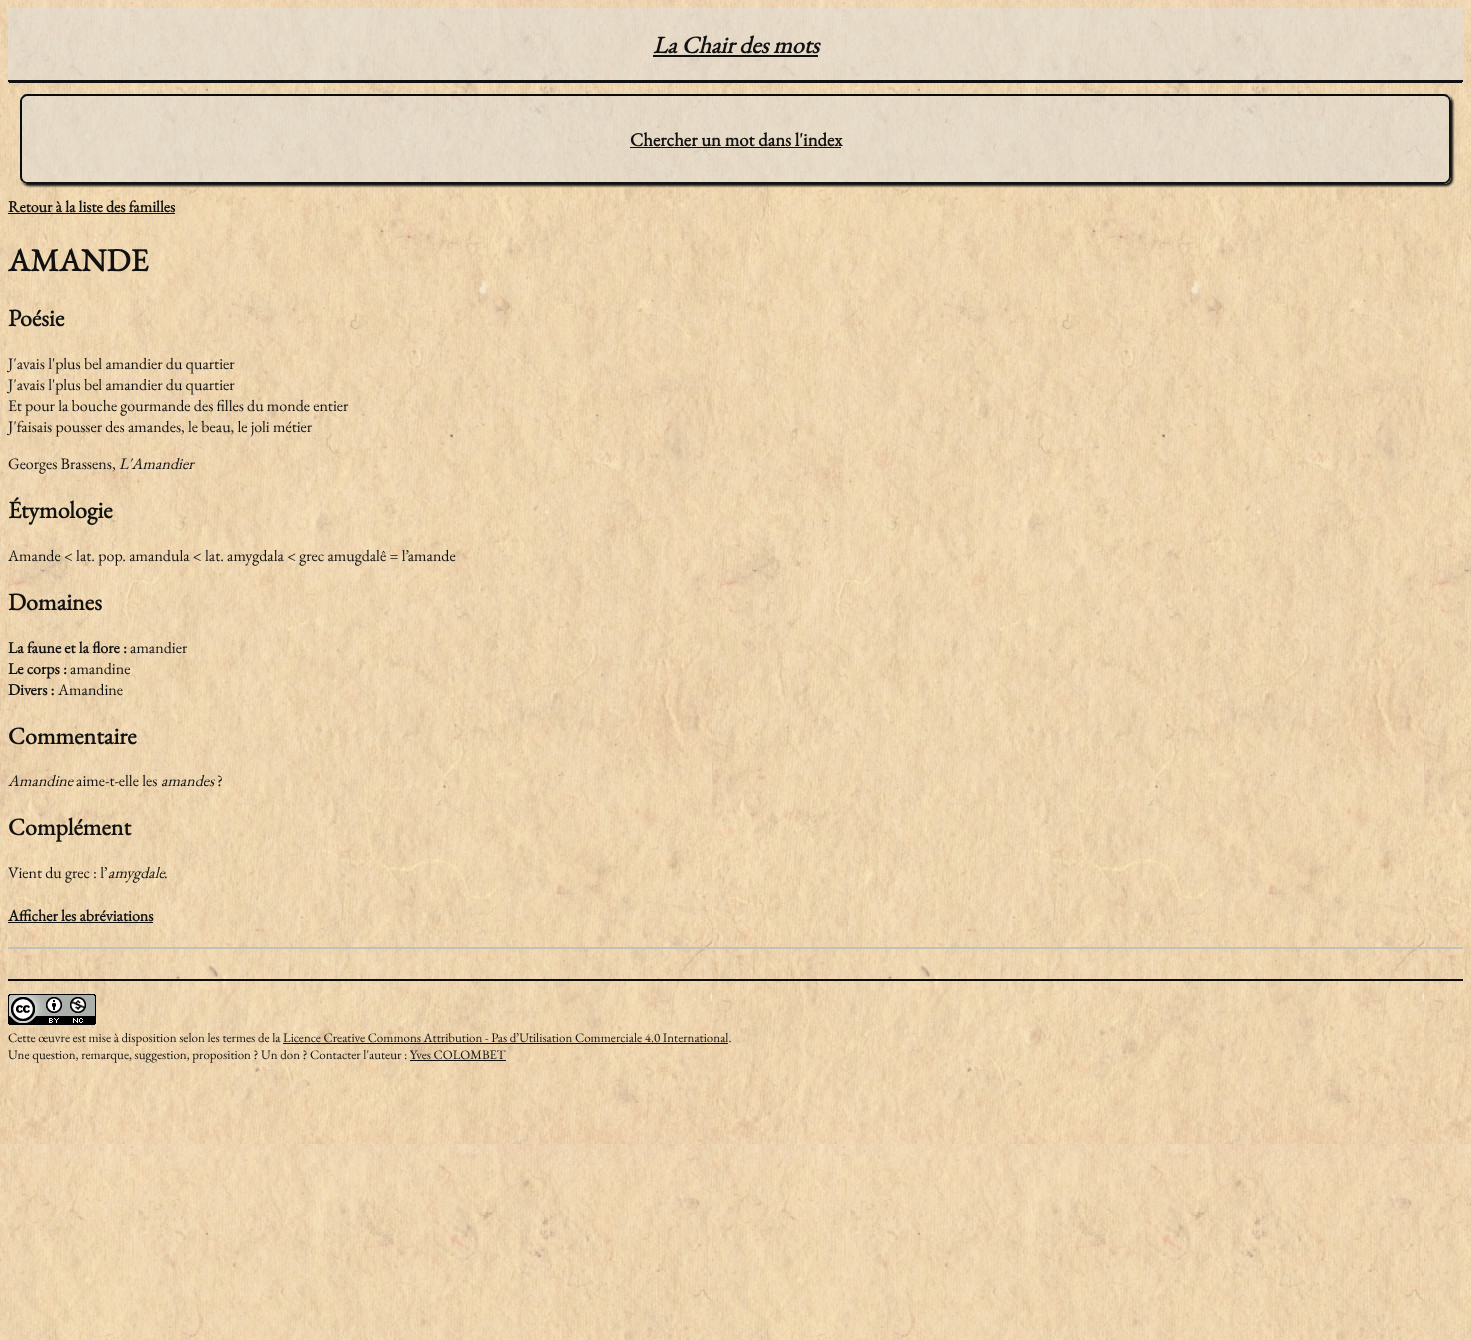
<svg xmlns="http://www.w3.org/2000/svg" width="1471" height="1340" viewBox="0 0 1471 1340">
  <defs>
    <clipPath id="clip1"><rect x="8" y="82" width="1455" height="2"/></clipPath>
    <clipPath id="clip2"><path d="M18 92H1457V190H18ZM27 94H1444C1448 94 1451 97 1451 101V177C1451 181 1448 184 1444 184H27C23 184 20 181 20 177V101C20 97 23 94 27 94Z" clip-rule="evenodd"/></clipPath>
  </defs>
  <rect width="100%" height="100%" fill="rgb(255,255,255)"/>
  <image x="0" y="0" width="1471" height="1340" href="pic1.png"/>
  <g clip-path="url(#clip1)">
    <rect x="9" y="11" width="1453" height="72" fill="rgb(17,17,17)" filter="blur(0.5px)"/>
  </g>
  <rect x="8" y="8" width="1455" height="72" fill="rgba(221,221,221,0.5)"/>
  <rect x="8" y="80" width="1455" height="2" fill="rgb(17,17,17)"/>
  <text x="653" y="53" font-family="EB Garamond" font-size="24" font-weight="bold" font-style="italic" fill="rgb(17,17,17)">La Chair des mots</text>
  <rect x="653" y="55" width="165" height="2" fill="rgb(17,17,17)"/>
  <g clip-path="url(#clip2)">
    <rect x="22" y="96" width="1431" height="90" rx="7" fill="rgb(17,17,17)" filter="blur(1px)"/>
  </g>
  <rect x="20" y="94" width="1431" height="90" rx="7" fill="rgba(221,221,221,0.5)"/>
  <path d="M1448 97C1449.5 98 1450 99.5 1450 101V177C1450 178.5 1449.5 180 1448 181C1447 182.5 1445.5 183 1444 183H27C25.5 183 24 182.5 23 181" fill="none" stroke="rgb(17,17,17)" stroke-width="2"/>
  <path d="M23 181C21.5 180 21 178.5 21 177V101C21 99.5 21.5 98 23 97C24 95.5 25.5 95 27 95H1444C1445.5 95 1447 95.5 1448 97" fill="none" stroke="rgb(11,11,11)" stroke-width="2"/>
  <text x="630" y="146" font-family="EB Garamond" font-size="18.75" font-weight="bold" fill="rgb(17,17,17)">Chercher un mot dans l'index</text>
  <rect x="630" y="147" width="211" height="1" fill="rgb(17,17,17)"/>
  <text x="8" y="212" font-family="EB Garamond" font-size="16" font-weight="bold" fill="rgb(17,17,17)">Retour à la liste des familles</text>
  <rect x="8" y="213" width="167" height="1" fill="rgb(17,17,17)"/>
  <text x="8" y="271" font-family="EB Garamond" font-size="32" font-weight="bold" fill="rgb(17,17,17)">AMANDE</text>
  <text x="8" y="326" font-family="EB Garamond" font-size="24" font-weight="bold" fill="rgb(17,17,17)">Poésie</text>
  <g font-family="EB Garamond" font-size="16" fill="rgb(17,17,17)">
    <text>
      <tspan x="8" y="369">J'avais l'plus bel amandier du quartier</tspan>
      <tspan x="8" y="390">J'avais l'plus bel amandier du quartier</tspan>
      <tspan x="8" y="411">Et pour la bouche gourmande des filles du monde entier</tspan>
      <tspan x="8" y="432">J'faisais pousser des amandes, le beau, le joli métier</tspan>
    </text>
    <text x="8" y="469">Georges Brassens,</text>
  </g>
  <text x="119" y="469" font-family="EB Garamond" font-size="16" font-style="italic" fill="rgb(17,17,17)">L'Amandier</text>
  <text x="8" y="518" font-family="EB Garamond" font-size="24" font-weight="bold" fill="rgb(17,17,17)">Étymologie</text>
  <text x="8" y="561" font-family="EB Garamond" font-size="16" fill="rgb(17,17,17)">Amande &lt; lat. pop. amandula &lt; lat. amygdala &lt; grec amugdalê = l’amande</text>
  <text x="8" y="610" font-family="EB Garamond" font-size="24" font-weight="bold" fill="rgb(17,17,17)">Domaines</text>
  <text x="8" y="653" font-family="EB Garamond" font-size="16" font-weight="bold" fill="rgb(17,17,17)">La faune et la flore :</text>
  <text x="130" y="653" font-family="EB Garamond" font-size="16" fill="rgb(17,17,17)">amandier</text>
  <text x="8" y="674" font-family="EB Garamond" font-size="16" font-weight="bold" fill="rgb(17,17,17)">Le corps :</text>
  <text x="70" y="674" font-family="EB Garamond" font-size="16" fill="rgb(17,17,17)">amandine</text>
  <text x="8" y="695" font-family="EB Garamond" font-size="16" font-weight="bold" fill="rgb(17,17,17)">Divers :</text>
  <text x="58" y="695" font-family="EB Garamond" font-size="16" fill="rgb(17,17,17)">Amandine</text>
  <text x="8" y="744" font-family="EB Garamond" font-size="24" font-weight="bold" fill="rgb(17,17,17)">Commentaire</text>
  <text x="8" y="786" font-family="EB Garamond" font-size="16" font-style="italic" fill="rgb(17,17,17)">Amandine</text>
  <text x="76" y="786" font-family="EB Garamond" font-size="16" fill="rgb(17,17,17)">aime-t-elle les</text>
  <text x="161" y="786" font-family="EB Garamond" font-size="16" font-style="italic" fill="rgb(17,17,17)">amandes</text>
  <text x="217" y="786" font-family="EB Garamond" font-size="16" fill="rgb(17,17,17)">?</text>
  <text x="8" y="835" font-family="EB Garamond" font-size="24" font-weight="bold" fill="rgb(17,17,17)">Complément</text>
  <text x="8" y="878" font-family="EB Garamond" font-size="16" fill="rgb(17,17,17)">Vient du grec : l’</text>
  <text x="108" y="878" font-family="EB Garamond" font-size="16" font-style="italic" fill="rgb(17,17,17)">amygdale</text>
  <text x="164" y="878" font-family="EB Garamond" font-size="16" fill="rgb(17,17,17)">.</text>
  <text x="8" y="921" font-family="EB Garamond" font-size="16" font-weight="bold" fill="rgb(17,17,17)">Afficher les abréviations</text>
  <rect x="8" y="922" width="145" height="1" fill="rgb(17,17,17)"/>
  <rect x="8" y="947" width="1455" height="2" fill="rgb(192,192,192)"/>
  <rect x="8" y="979" width="1455" height="2" fill="rgb(11,11,11)"/>
  <image x="8" y="994" width="88" height="31" href="pic2.png"/>
  <text x="8" y="1042" font-family="EB Garamond" font-size="13" fill="rgb(17,17,17)">Cette œuvre est mise à disposition selon les termes de la Licence Creative Commons Attribution - Pas d’Utilisation Commerciale 4.0 International.</text>
  <rect x="283" y="1043" width="445" height="1" fill="rgb(17,17,17)"/>
  <text x="8" y="1059" font-family="EB Garamond" font-size="13" fill="rgb(17,17,17)">Une question, remarque, suggestion, proposition ? Un don ? Contacter l'auteur : Yves COLOMBET</text>
  <rect x="410" y="1060" width="96" height="1" fill="rgb(17,17,17)"/>
</svg>
